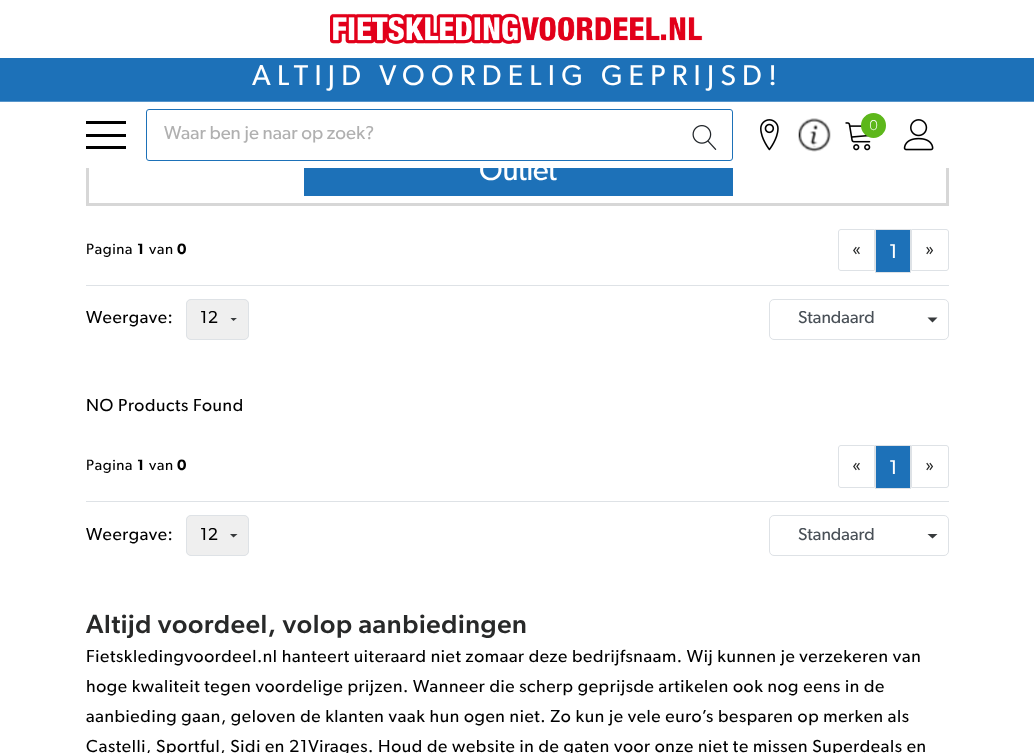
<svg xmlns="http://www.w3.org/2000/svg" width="1034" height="753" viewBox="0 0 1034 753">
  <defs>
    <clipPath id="clip1"><rect x="230" y="318" width="8" height="4"/></clipPath>
    <clipPath id="clip2"><rect x="200" y="311" width="35" height="18"/></clipPath>
    <clipPath id="clip3"><rect x="798" y="311" width="122" height="18"/></clipPath>
    <clipPath id="clip4"><rect x="200" y="528" width="35" height="17"/></clipPath>
    <clipPath id="clip5"><rect x="798" y="528" width="122" height="17"/></clipPath>
  </defs>
  <rect width="100%" height="100%" fill="rgb(255,255,255)"/>
  <rect x="87.5" y="156.5" width="860" height="48" fill="none" stroke="rgb(215,215,215)" stroke-width="3"/>
  <rect x="86" y="155" width="863" height="13" fill="rgb(255,255,255)"/>
  <image x="330" y="13" width="373" height="31" href="pic1.png"/>
  <rect x="0" y="58" width="1034" height="43" fill="rgb(29,113,184)"/>
  <rect x="0" y="101" width="1034" height="1" fill="rgb(86,149,203)"/>
  <text x="252" y="85" font-family="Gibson" font-size="28.75" letter-spacing="6.3" fill="rgb(255,255,255)">ALTIJD VOORDELIG GEPRIJSD!</text>
  <rect x="86" y="121" width="40" height="3" fill="rgb(0,0,0)"/>
  <rect x="86" y="134" width="40" height="3" fill="rgb(0,0,0)"/>
  <rect x="86" y="146" width="40" height="3" fill="rgb(0,0,0)"/>
  <rect x="304" y="168" width="429" height="28" fill="rgb(29,113,184)"/>
  <text x="479" y="180" font-family="Gibson" font-size="30" letter-spacing="-0.75" fill="rgb(255,255,255)">Outlet</text>
  <rect x="146.5" y="109.5" width="586" height="51" rx="2.5" fill="none" stroke="rgb(29,113,184)"/>
  <text x="164" y="139" font-family="Gibson" font-size="18.75" fill="rgb(176,176,176)">Waar ben je naar op zoek?</text>
  <image x="692" y="125" width="25" height="25" href="pic2.png"/>
  <image x="760" y="119" width="19" height="32" href="pic3.png"/>
  <image x="798" y="118" width="33" height="34" href="pic4.png"/>
  <image x="845" y="122" width="26" height="29" href="pic5.png"/>
  <circle cx="873.5" cy="125.5" r="12.5" fill="rgb(93,183,27)"/>
  <text x="869" y="130" font-family="Work Sans" font-size="15" font-weight="300" letter-spacing="0.62" fill="rgb(255,255,255)">0</text>
  <image x="903" y="119" width="31" height="32" href="pic6.png"/>
  <rect x="86" y="285" width="863" height="1" fill="rgb(222,226,230)"/>
  <text x="86" y="254" font-family="Gibson" font-size="15" letter-spacing="0.62" fill="rgb(0,0,0)">Pagina</text>
  <text x="137" y="254" font-family="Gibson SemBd" font-size="15" font-weight="600" letter-spacing="0.62" fill="rgb(0,0,0)">1</text>
  <text x="149" y="254" font-family="Gibson" font-size="15" letter-spacing="0.62" fill="rgb(0,0,0)">van</text>
  <text x="177" y="254" font-family="Gibson SemBd" font-size="15" font-weight="600" letter-spacing="0.62" fill="rgb(0,0,0)">0</text>
  <path d="M841 229.5H874.5V270.5H841C839.5 270.5 838.5 269.5 838.5 268V232C838.5 230.5 839.5 229.5 841 229.5Z" fill="none" stroke="rgb(222,226,230)"/>
  <text x="852" y="255" font-family="Gibson" font-size="18.75" letter-spacing="0.62" fill="rgb(40,41,41)">«</text>
  <rect x="875.5" y="229.5" width="35" height="43" fill="rgb(29,113,184)" stroke="rgb(222,226,230)"/>
  <text x="889" y="258" font-family="Gibson" font-size="20" fill="rgb(255,255,255)">1</text>
  <path d="M911.5 229.5H946C947.5 229.5 948.5 230.5 948.5 232V268C948.5 269.5 947.5 270.5 946 270.5H911.5Z" fill="none" stroke="rgb(222,226,230)"/>
  <text x="925" y="255" font-family="Gibson" font-size="18.75" letter-spacing="0.62" fill="rgb(40,41,41)">»</text>
  <text x="86" y="323" font-family="Gibson" font-size="17.5" letter-spacing="0.62" fill="rgb(0,0,0)">Weergave:</text>
  <rect x="186" y="299" width="63" height="41" rx="5" fill="rgb(239,239,239)"/>
  <g clip-path="url(#clip1)">
    <path d="M230 317.5H237.5L233.5 321Z" fill="rgb(55,58,60)"/>
  </g>
  <rect x="186.5" y="299.5" width="62" height="40" rx="4.5" fill="none" stroke="rgb(222,226,230)"/>
  <g clip-path="url(#clip2)">
    <text x="200" y="323" font-family="Gibson" font-size="17.5" fill="rgb(0,0,0)">12</text>
  </g>
  <path d="M927.5 317.5H937.5L932.5 322.5Z" fill="rgb(55,58,60)"/>
  <rect x="769.5" y="299.5" width="179" height="40" rx="4.5" fill="none" stroke="rgb(222,226,230)"/>
  <g clip-path="url(#clip3)">
    <text x="798" y="323" font-family="Gibson" font-size="17.5" fill="rgb(73,80,87)">Standaard</text>
  </g>
  <text x="86" y="411" font-family="Gibson" font-size="17.5" letter-spacing="0.62" fill="rgb(0,0,0)">NO Products Found</text>
  <rect x="86" y="501" width="863" height="1" fill="rgb(222,226,230)"/>
  <text x="86" y="470" font-family="Gibson" font-size="15" letter-spacing="0.62" fill="rgb(0,0,0)">Pagina</text>
  <text x="137" y="470" font-family="Gibson SemBd" font-size="15" font-weight="600" letter-spacing="0.62" fill="rgb(0,0,0)">1</text>
  <text x="149" y="470" font-family="Gibson" font-size="15" letter-spacing="0.62" fill="rgb(0,0,0)">van</text>
  <text x="177" y="470" font-family="Gibson SemBd" font-size="15" font-weight="600" letter-spacing="0.62" fill="rgb(0,0,0)">0</text>
  <path d="M841 445.5H874.5V487.5H841C839.5 487.5 838.5 486.5 838.5 485V448C838.5 446.5 839.5 445.5 841 445.5Z" fill="none" stroke="rgb(222,226,230)"/>
  <text x="852" y="471" font-family="Gibson" font-size="18.75" letter-spacing="0.62" fill="rgb(40,41,41)">«</text>
  <rect x="875.5" y="445.5" width="35" height="43" fill="rgb(29,113,184)" stroke="rgb(222,226,230)"/>
  <text x="889" y="474" font-family="Gibson" font-size="20" fill="rgb(255,255,255)">1</text>
  <path d="M911.5 445.5H946C947.5 445.5 948.5 446.5 948.5 448V485C948.5 486.5 947.5 487.5 946 487.5H911.5Z" fill="none" stroke="rgb(222,226,230)"/>
  <text x="925" y="471" font-family="Gibson" font-size="18.75" letter-spacing="0.62" fill="rgb(40,41,41)">»</text>
  <text x="86" y="540" font-family="Gibson" font-size="17.5" letter-spacing="0.62" fill="rgb(0,0,0)">Weergave:</text>
  <rect x="186" y="515" width="63" height="41" rx="5" fill="rgb(239,239,239)"/>
  <path d="M230 534H237.5L233.5 537.5Z" fill="rgb(55,58,60)"/>
  <rect x="186.5" y="515.5" width="62" height="40" rx="4.5" fill="none" stroke="rgb(222,226,230)"/>
  <g clip-path="url(#clip4)">
    <text x="200" y="540" font-family="Gibson" font-size="17.5" fill="rgb(0,0,0)">12</text>
  </g>
  <path d="M927.5 534H937.5L932.5 538.5Z" fill="rgb(55,58,60)"/>
  <rect x="769.5" y="515.5" width="179" height="40" rx="4.5" fill="none" stroke="rgb(222,226,230)"/>
  <g clip-path="url(#clip5)">
    <text x="798" y="540" font-family="Gibson" font-size="17.5" fill="rgb(73,80,87)">Standaard</text>
  </g>
  <text x="86" y="633" font-family="Gibson" font-size="26.25" font-weight="500" letter-spacing="0.62" fill="rgb(40,41,41)">Altijd voordeel, volop aanbiedingen</text>
  <g font-family="Gibson" font-size="17.5" letter-spacing="0.62" fill="rgb(0,0,0)">
    <text>
      <tspan x="86" y="662">Fietskledingvoordeel.nl hanteert uiteraard niet zomaar deze bedrijfsnaam. Wij kunnen je verzekeren van</tspan>
      <tspan x="86" y="692">hoge kwaliteit tegen voordelige prijzen. Wanneer die scherp geprijsde artikelen ook nog eens in de</tspan>
      <tspan x="86" y="722">aanbieding gaan, geloven de klanten vaak hun ogen niet. Zo kun je vele euro’s besparen op merken als</tspan>
      <tspan x="86" y="752">Castelli, Sportful, Sidi en 21Virages. Houd de website in de gaten voor onze niet te missen Superdeals en</tspan>
    </text>
  </g>
</svg>
